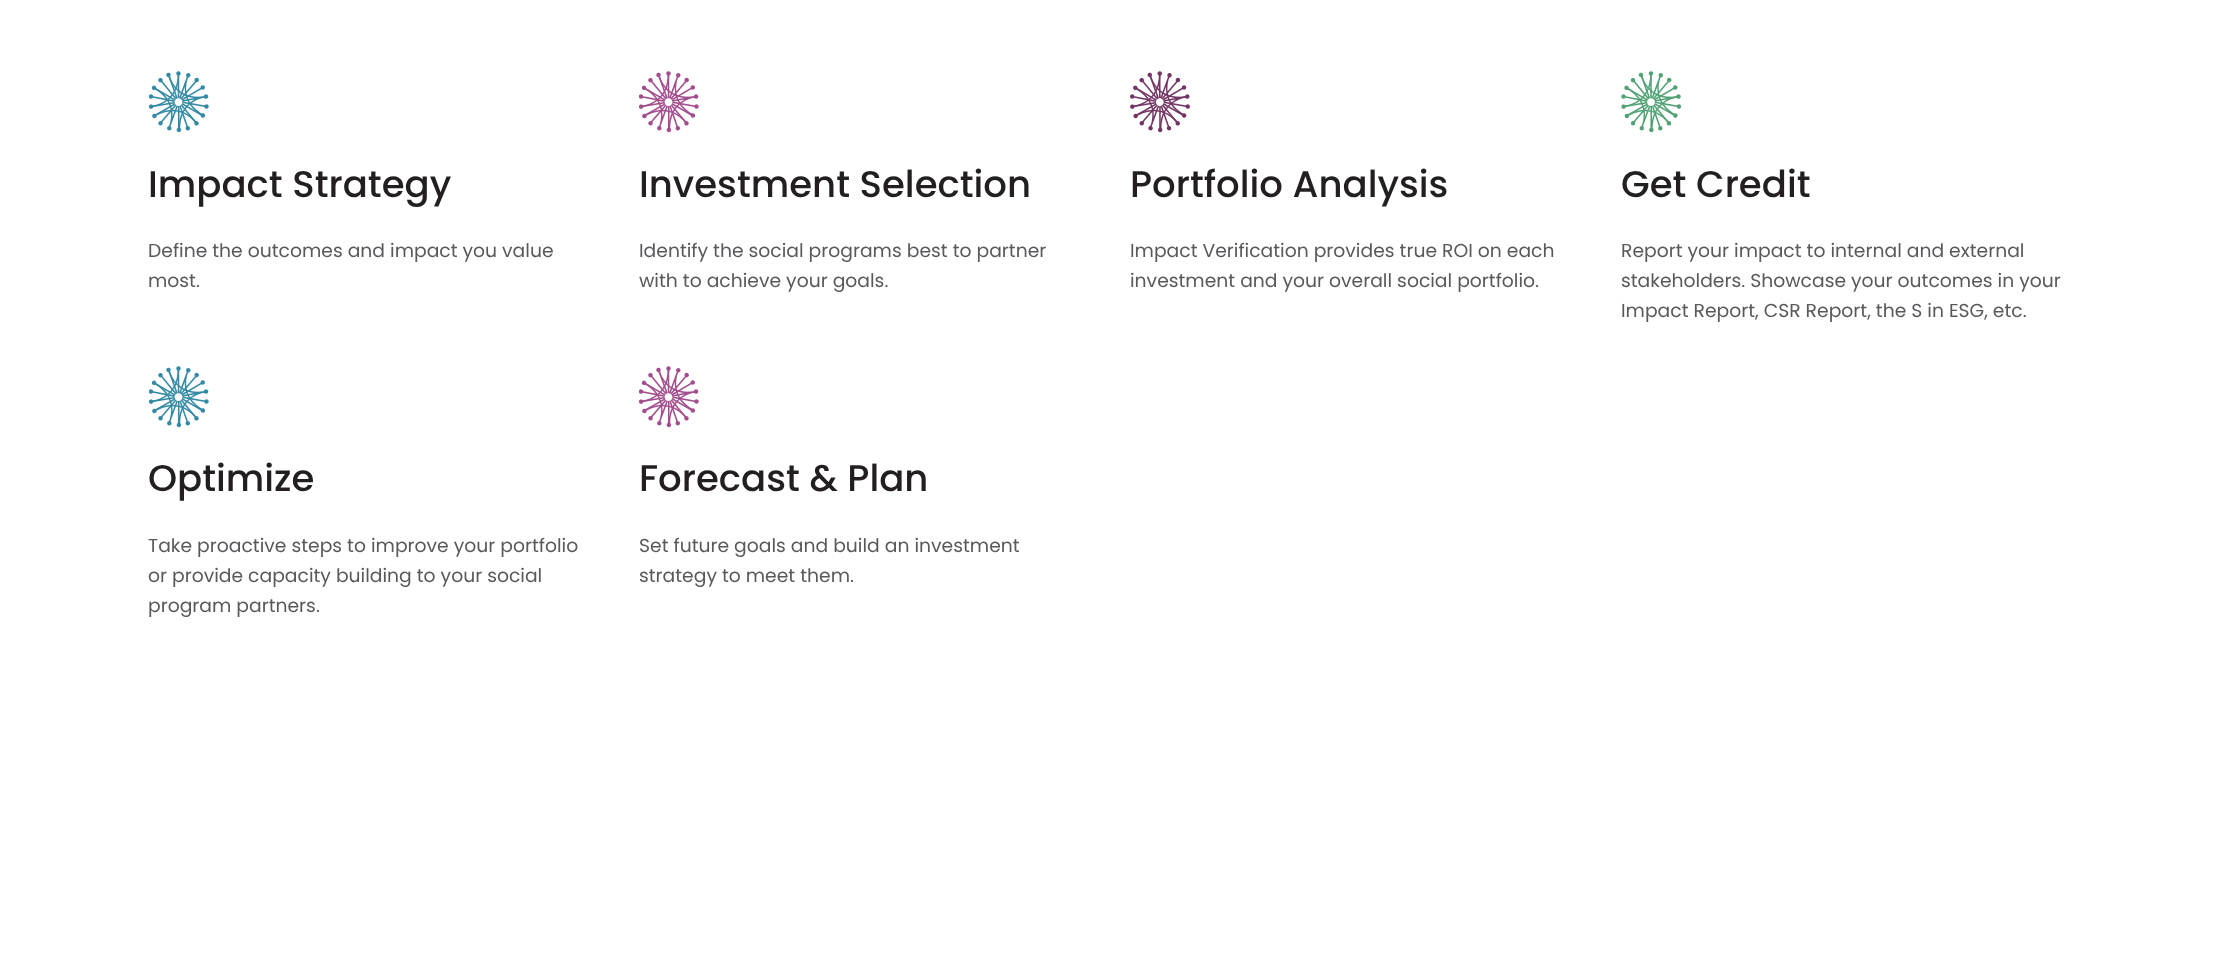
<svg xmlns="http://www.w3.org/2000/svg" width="2219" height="967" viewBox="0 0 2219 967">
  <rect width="100%" height="100%" fill="rgb(255,255,255)"/>
  <image x="149" y="71" width="60" height="62" href="pic1.png"/>
  <text x="148" y="197" font-family="Poppins" font-size="37.1" font-weight="500" fill="rgb(35,31,32)">Impact Strategy</text>
  <g font-family="Poppins" font-size="18.75" fill="rgb(90,88,92)">
    <text>
      <tspan x="148" y="257">Define the outcomes and impact you value</tspan>
      <tspan x="148" y="287">most.</tspan>
    </text>
  </g>
  <image x="639" y="71" width="60" height="62" href="pic2.png"/>
  <text x="639" y="197" font-family="Poppins" font-size="37.1" font-weight="500" fill="rgb(35,31,32)">Investment Selection</text>
  <g font-family="Poppins" font-size="18.75" fill="rgb(90,88,92)">
    <text>
      <tspan x="639" y="257">Identify the social programs best to partner</tspan>
      <tspan x="639" y="287">with to achieve your goals.</tspan>
    </text>
  </g>
  <image x="1130" y="71" width="60" height="62" href="pic3.png"/>
  <text x="1130" y="197" font-family="Poppins" font-size="37.1" font-weight="500" fill="rgb(35,31,32)">Portfolio Analysis</text>
  <g font-family="Poppins" font-size="18.75" fill="rgb(90,88,92)">
    <text>
      <tspan x="1130" y="257">Impact Verification provides true ROI on each</tspan>
      <tspan x="1130" y="287">investment and your overall social portfolio.</tspan>
    </text>
  </g>
  <image x="1621" y="71" width="60" height="62" href="pic4.png"/>
  <text x="1621" y="197" font-family="Poppins" font-size="37.1" font-weight="500" fill="rgb(35,31,32)">Get Credit</text>
  <g font-family="Poppins" font-size="18.75" fill="rgb(90,88,92)">
    <text>
      <tspan x="1621" y="257">Report your impact to internal and external</tspan>
      <tspan x="1621" y="287">stakeholders. Showcase your outcomes in your</tspan>
      <tspan x="1621" y="317">Impact Report, CSR Report, the S in ESG, etc.</tspan>
    </text>
  </g>
  <image x="149" y="366" width="60" height="62" href="pic1.png"/>
  <text x="148" y="491" font-family="Poppins" font-size="37.1" font-weight="500" fill="rgb(35,31,32)">Optimize</text>
  <g font-family="Poppins" font-size="18.75" fill="rgb(90,88,92)">
    <text>
      <tspan x="148" y="552">Take proactive steps to improve your portfolio</tspan>
      <tspan x="148" y="582">or provide capacity building to your social</tspan>
      <tspan x="148" y="612">program partners.</tspan>
    </text>
  </g>
  <image x="639" y="366" width="60" height="62" href="pic2.png"/>
  <text x="639" y="491" font-family="Poppins" font-size="37.1" font-weight="500" fill="rgb(35,31,32)">Forecast &amp; Plan</text>
  <g font-family="Poppins" font-size="18.75" fill="rgb(90,88,92)">
    <text>
      <tspan x="639" y="552">Set future goals and build an investment</tspan>
      <tspan x="639" y="582">strategy to meet them.</tspan>
    </text>
  </g>
</svg>
